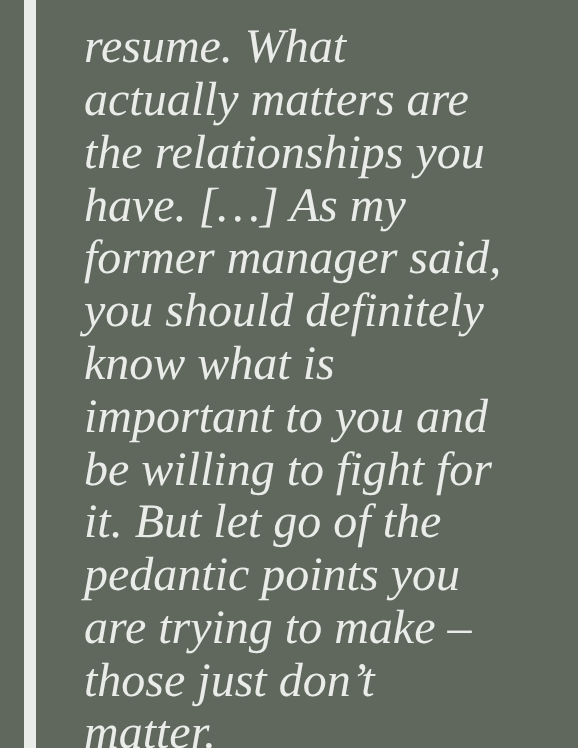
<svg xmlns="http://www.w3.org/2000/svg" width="578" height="748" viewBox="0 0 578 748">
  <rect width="100%" height="100%" fill="rgb(96,104,93)"/>
  <rect x="24" y="0" width="12" height="748" fill="rgb(234,236,233)"/>
  <g font-family="Liberation Serif" font-size="48" font-style="italic" fill="rgb(234,236,233)">
    <text>
      <tspan x="84" y="62">resume. What</tspan>
      <tspan x="84" y="115">actually matters are</tspan>
      <tspan x="84" y="168">the relationships you</tspan>
      <tspan x="84" y="221">have. […] As my</tspan>
      <tspan x="84" y="273">former manager said,</tspan>
      <tspan x="84" y="326">you should definitely</tspan>
      <tspan x="84" y="379">know what is</tspan>
      <tspan x="84" y="432">important to you and</tspan>
      <tspan x="84" y="485">be willing to fight for</tspan>
      <tspan x="84" y="537">it. But let go of the</tspan>
      <tspan x="84" y="590">pedantic points you</tspan>
      <tspan x="84" y="643">are trying to make –</tspan>
      <tspan x="84" y="696">those just don’t</tspan>
      <tspan x="84" y="748">matter.</tspan>
    </text>
  </g>
</svg>
